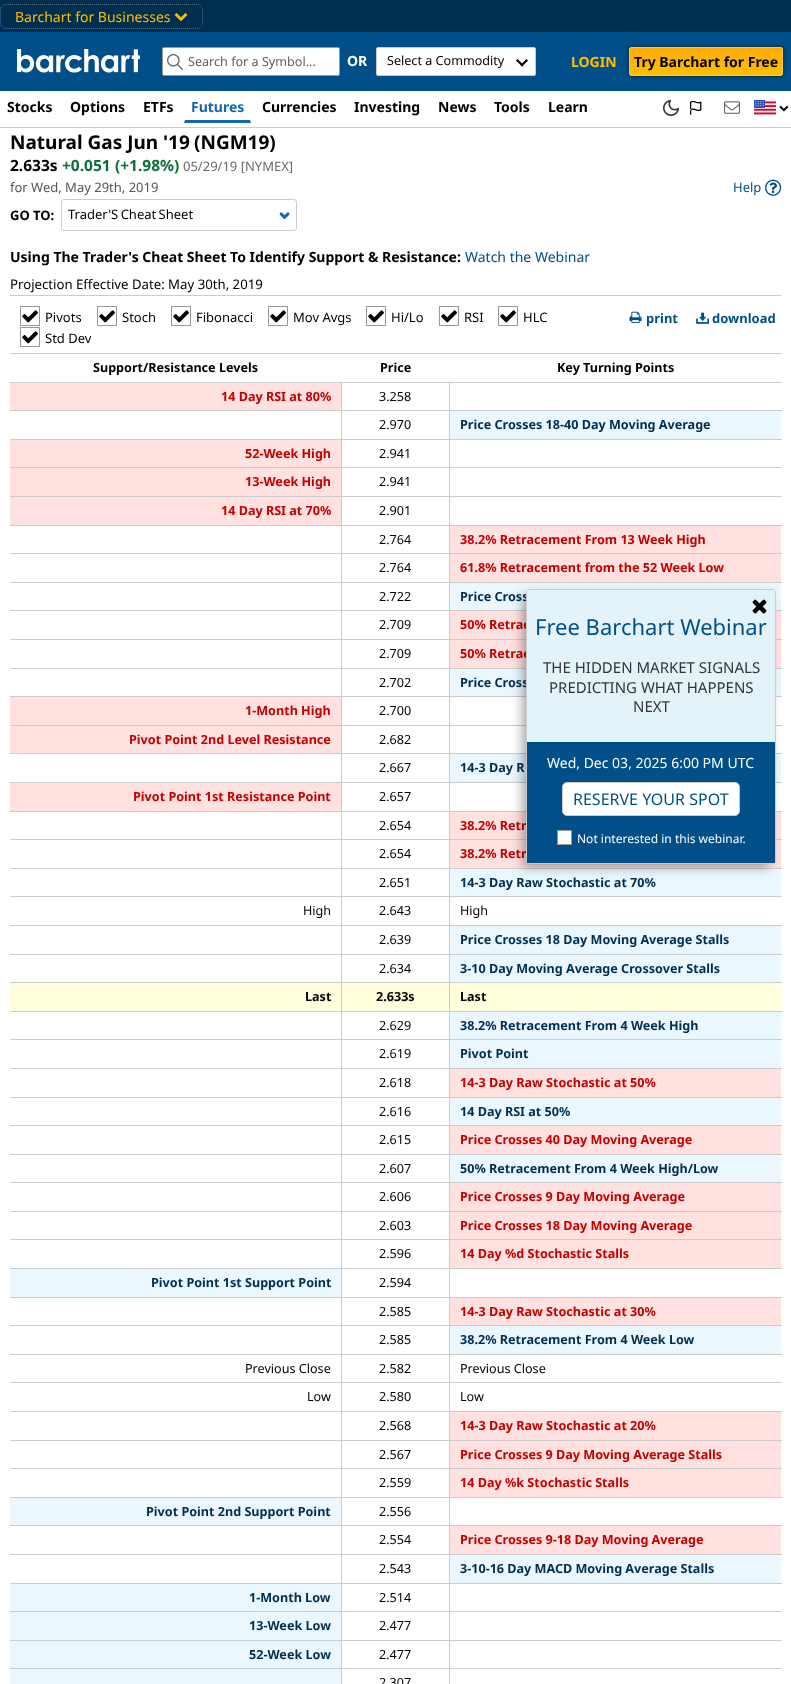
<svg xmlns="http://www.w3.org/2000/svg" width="791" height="1684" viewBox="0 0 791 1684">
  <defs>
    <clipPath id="clip1"><rect x="629" y="47" width="154" height="29" rx="3"/></clipPath>
    <linearGradient id="g1" gradientUnits="userSpaceOnUse" x1="706" y1="75" x2="706" y2="48"><stop offset="0" stop-color="rgb(255,171,0)" stop-opacity="0"/><stop offset="1" stop-color="rgb(255,171,0)"/></linearGradient>
  </defs>
  <rect width="100%" height="100%" fill="rgb(255,255,255)"/>
  <rect x="0" y="127" width="791" height="1" fill="rgb(204,204,204)"/>
  <rect x="0" y="0" width="791" height="32" fill="rgb(0,46,79)"/>
  <path d="M6 4.5H197C200 4.5 202.5 7 202.5 10V23C202.5 26 200 28.5 197 28.5H6C3 28.5 .5 26 .5 23V10C.5 7 3 4.5 6 4.5Z" fill="none" stroke="rgb(77,109,132)" stroke-dasharray="1 1"/>
  <text x="15" y="22" font-family="Noto Sans" font-size="14" fill="rgb(255,191,0)">Barchart for Businesses</text>
  <image x="174" y="13" width="14" height="8" href="pic1.png"/>
  <rect x="0" y="32" width="791" height="59" fill="rgb(0,79,136)"/>
  <image x="17" y="49" width="123" height="24" href="pic2.png"/>
  <rect x="162.5" y="47.5" width="177" height="28" rx="1.5" fill="rgb(255,255,255)" stroke="rgb(153,153,153)"/>
  <image x="167" y="54" width="16" height="16" href="pic3.png"/>
  <text x="188" y="66" font-family="Noto Sans" font-size="12.6" fill="rgb(94,94,94)">Search for a Symbol...</text>
  <text x="347" y="66" font-family="Noto Sans" font-size="14" font-weight="bold" fill="rgb(255,255,255)">OR</text>
  <rect x="376.5" y="47.5" width="159" height="28" rx="1.5" fill="rgb(255,255,255)" stroke="rgb(204,204,204)"/>
  <text x="387" y="65" font-family="Noto Sans" font-size="12.6" fill="rgb(0,0,0)">Select a Commodity</text>
  <path d="M526.5 59L528 60.5L522 66.5L520.5 65Z" fill="rgb(0,0,0)"/>
  <path d="M517.5 59L523.5 65L522 66.5L516 60.5Z" fill="rgb(0,0,0)"/>
  <text x="571" y="67" font-family="Noto Sans" font-size="14" font-weight="bold" fill="rgb(255,191,0)">LOGIN</text>
  <rect x="628" y="46" width="156" height="31" rx="4" fill="rgba(0,0,0,0.4)" filter="blur(1.5px)"/>
  <rect x="629" y="47" width="154" height="29" rx="3" fill="rgb(255,191,0)"/>
  <g clip-path="url(#clip1)">
    <rect x="629" y="48" width="154" height="26" fill="url(#g1)"/>
  </g>
  <rect x="629.5" y="47.5" width="153" height="28" rx="2.5" fill="none" stroke="rgb(248,203,69)"/>
  <g font-family="Noto Sans" font-size="14" font-weight="bold" fill="rgb(0,0,0)">
    <text x="634" y="67">Try Barchart for Free</text>
    <text x="7" y="112">Stocks</text>
    <text x="70" y="112">Options</text>
    <text x="143" y="112">ETFs</text>
  </g>
  <path d="M251 123H184L185 120H250Z" fill="rgb(18,102,179)"/>
  <text x="191" y="112" font-family="Noto Sans" font-size="14" font-weight="bold" fill="rgb(18,102,179)">Futures</text>
  <g font-family="Noto Sans" font-size="14" font-weight="bold" fill="rgb(0,0,0)">
    <text x="262" y="112">Currencies</text>
    <text x="354" y="112">Investing</text>
    <text x="438" y="112">News</text>
    <text x="494" y="112">Tools</text>
    <text x="548" y="112">Learn</text>
  </g>
  <image x="663" y="100" width="16" height="16" href="pic4.png"/>
  <image x="690" y="100" width="12" height="15" href="pic5.png"/>
  <image x="724" y="101" width="16" height="13" href="pic6.png"/>
  <image x="754" y="100" width="22" height="15" href="pic7.png"/>
  <image x="779" y="105" width="10" height="7" href="pic8.png"/>
  <g font-family="Noto Sans" font-size="19" font-weight="bold" fill="rgb(0,0,0)">
    <text x="10" y="149">Natural Gas Jun '19</text>
    <text x="194" y="149">(NGM19)</text>
  </g>
  <text x="10" y="171" font-family="Noto Sans" font-size="15.5" font-weight="bold" fill="rgb(0,0,0)">2.633s</text>
  <g font-family="Noto Sans" font-size="15.5" font-weight="bold" fill="rgb(14,112,57)">
    <text x="62" y="171">+0.051</text>
    <text x="115" y="171">(+1.98%)</text>
  </g>
  <text x="183" y="171" font-family="Noto Sans" font-size="13" fill="rgb(106,106,106)">05/29/19 [NYMEX]</text>
  <text x="10" y="192" font-family="Noto Sans" font-size="13" fill="rgb(85,85,85)">for Wed, May 29th, 2019</text>
  <text x="733" y="192" font-family="Noto Sans" font-size="13" fill="rgb(0,79,136)">Help</text>
  <image x="765" y="179" width="17" height="17" href="pic9.png"/>
  <text x="10" y="220" font-family="Noto Sans" font-size="13" font-weight="bold" fill="rgb(0,0,0)">GO TO:</text>
  <image x="279" y="212" width="11" height="8" href="pic10.png"/>
  <rect x="61.5" y="199.5" width="235" height="31" rx="2.5" fill="none" stroke="rgb(204,204,204)"/>
  <text x="68" y="219" word-spacing="-1" font-family="Noto Sans" font-size="13" fill="rgb(0,0,0)">Trader'S Cheat Sheet</text>
  <text x="10" y="262" font-family="Noto Sans" font-size="14" font-weight="bold" fill="rgb(0,0,0)">Using The Trader's Cheat Sheet To Identify Support &amp; Resistance:</text>
  <text x="465" y="262" font-family="Noto Sans" font-size="14" fill="rgb(0,79,136)">Watch the Webinar</text>
  <rect x="10" y="295" width="771" height="1" fill="rgb(204,204,204)"/>
  <text x="10" y="289" font-family="Noto Sans" font-size="13.2" fill="rgb(0,0,0)">Projection Effective Date: May 30th, 2019</text>
  <rect x="20.5" y="306.5" width="19" height="19" fill="none" stroke="rgb(153,153,153)"/>
  <image x="22" y="310" width="16" height="13" href="pic11.png"/>
  <text x="45" y="322" font-family="Noto Sans" font-size="13" fill="rgb(0,0,0)">Pivots</text>
  <rect x="97.5" y="306.5" width="19" height="19" fill="none" stroke="rgb(153,153,153)"/>
  <image x="99" y="310" width="16" height="13" href="pic11.png"/>
  <text x="122" y="322" font-family="Noto Sans" font-size="13" fill="rgb(0,0,0)">Stoch</text>
  <rect x="171.5" y="306.5" width="19" height="19" fill="none" stroke="rgb(153,153,153)"/>
  <image x="173" y="310" width="16" height="13" href="pic11.png"/>
  <text x="196" y="322" font-family="Noto Sans" font-size="13" fill="rgb(0,0,0)">Fibonacci</text>
  <rect x="268.5" y="306.5" width="19" height="19" fill="none" stroke="rgb(153,153,153)"/>
  <image x="270" y="310" width="16" height="13" href="pic11.png"/>
  <text x="293" y="322" font-family="Noto Sans" font-size="13" fill="rgb(0,0,0)">Mov Avgs</text>
  <rect x="366.5" y="306.5" width="19" height="19" fill="none" stroke="rgb(153,153,153)"/>
  <image x="368" y="310" width="16" height="13" href="pic11.png"/>
  <text x="391" y="322" font-family="Noto Sans" font-size="13" fill="rgb(0,0,0)">Hi/Lo</text>
  <rect x="439.5" y="306.5" width="19" height="19" fill="none" stroke="rgb(153,153,153)"/>
  <image x="441" y="310" width="16" height="13" href="pic11.png"/>
  <text x="464" y="322" font-family="Noto Sans" font-size="13" fill="rgb(0,0,0)">RSI</text>
  <rect x="498.5" y="306.5" width="19" height="19" fill="none" stroke="rgb(153,153,153)"/>
  <image x="500" y="310" width="16" height="13" href="pic11.png"/>
  <text x="523" y="322" font-family="Noto Sans" font-size="13" fill="rgb(0,0,0)">HLC</text>
  <rect x="20.5" y="327.5" width="19" height="19" fill="none" stroke="rgb(153,153,153)"/>
  <image x="22" y="331" width="16" height="13" href="pic11.png"/>
  <text x="45" y="343" font-family="Noto Sans" font-size="13" fill="rgb(0,0,0)">Std Dev</text>
  <image x="629" y="311" width="13" height="12" href="pic12.png"/>
  <text x="646" y="323" font-family="Noto Sans" font-size="13" font-weight="bold" fill="rgb(0,79,136)">print</text>
  <image x="696" y="312" width="13" height="12" href="pic13.png"/>
  <text x="712" y="323" font-family="Noto Sans" font-size="13" font-weight="bold" fill="rgb(0,79,136)">download</text>
  <g font-family="Noto Sans" font-size="12.6" font-weight="bold" fill="rgb(0,0,0)">
    <text x="93" y="372">Support/Resistance Levels</text>
    <text x="380" y="372">Price</text>
  </g>
  <rect x="10" y="353" width="772" height="1" fill="rgb(204,204,204)"/>
  <rect x="449" y="1668" width="1" height="16" fill="rgb(204,204,204)"/>
  <rect x="449" y="1668" width="333" height="1" fill="rgb(204,204,204)"/>
  <rect x="449" y="1640" width="1" height="29" fill="rgb(204,204,204)"/>
  <rect x="449" y="1640" width="333" height="1" fill="rgb(204,204,204)"/>
  <rect x="449" y="1611" width="1" height="30" fill="rgb(204,204,204)"/>
  <rect x="449" y="1611" width="333" height="1" fill="rgb(204,204,204)"/>
  <rect x="449" y="1583" width="1" height="29" fill="rgb(204,204,204)"/>
  <rect x="449" y="1583" width="333" height="1" fill="rgb(204,204,204)"/>
  <rect x="449" y="1554" width="1" height="30" fill="rgb(204,204,204)"/>
  <rect x="449" y="1554" width="333" height="1" fill="rgb(204,204,204)"/>
  <rect x="449" y="1525" width="1" height="30" fill="rgb(204,204,204)"/>
  <rect x="449" y="1525" width="333" height="1" fill="rgb(204,204,204)"/>
  <rect x="449" y="1497" width="1" height="29" fill="rgb(204,204,204)"/>
  <rect x="449" y="1497" width="333" height="1" fill="rgb(204,204,204)"/>
  <rect x="449" y="1468" width="1" height="30" fill="rgb(204,204,204)"/>
  <rect x="449" y="1468" width="333" height="1" fill="rgb(204,204,204)"/>
  <rect x="449" y="1440" width="1" height="29" fill="rgb(204,204,204)"/>
  <rect x="449" y="1440" width="333" height="1" fill="rgb(204,204,204)"/>
  <rect x="449" y="1411" width="1" height="30" fill="rgb(204,204,204)"/>
  <rect x="449" y="1411" width="333" height="1" fill="rgb(204,204,204)"/>
  <rect x="449" y="1382" width="1" height="30" fill="rgb(204,204,204)"/>
  <rect x="449" y="1382" width="333" height="1" fill="rgb(204,204,204)"/>
  <rect x="449" y="1354" width="1" height="29" fill="rgb(204,204,204)"/>
  <rect x="449" y="1354" width="333" height="1" fill="rgb(204,204,204)"/>
  <rect x="449" y="1325" width="1" height="30" fill="rgb(204,204,204)"/>
  <rect x="449" y="1325" width="333" height="1" fill="rgb(204,204,204)"/>
  <rect x="449" y="1297" width="1" height="29" fill="rgb(204,204,204)"/>
  <rect x="449" y="1297" width="333" height="1" fill="rgb(204,204,204)"/>
  <rect x="449" y="1268" width="1" height="30" fill="rgb(204,204,204)"/>
  <rect x="449" y="1268" width="333" height="1" fill="rgb(204,204,204)"/>
  <rect x="449" y="1239" width="1" height="30" fill="rgb(204,204,204)"/>
  <rect x="449" y="1239" width="333" height="1" fill="rgb(204,204,204)"/>
  <rect x="449" y="1211" width="1" height="29" fill="rgb(204,204,204)"/>
  <rect x="449" y="1211" width="333" height="1" fill="rgb(204,204,204)"/>
  <rect x="449" y="1182" width="1" height="30" fill="rgb(204,204,204)"/>
  <rect x="449" y="1182" width="333" height="1" fill="rgb(204,204,204)"/>
  <rect x="449" y="1154" width="1" height="29" fill="rgb(204,204,204)"/>
  <rect x="449" y="1154" width="333" height="1" fill="rgb(204,204,204)"/>
  <rect x="449" y="1125" width="1" height="30" fill="rgb(204,204,204)"/>
  <rect x="449" y="1125" width="333" height="1" fill="rgb(204,204,204)"/>
  <rect x="449" y="1097" width="1" height="29" fill="rgb(204,204,204)"/>
  <rect x="449" y="1097" width="333" height="1" fill="rgb(204,204,204)"/>
  <rect x="449" y="1068" width="1" height="30" fill="rgb(204,204,204)"/>
  <rect x="449" y="1068" width="333" height="1" fill="rgb(204,204,204)"/>
  <rect x="449" y="1039" width="1" height="30" fill="rgb(204,204,204)"/>
  <rect x="449" y="1039" width="333" height="1" fill="rgb(204,204,204)"/>
  <rect x="449" y="1011" width="1" height="29" fill="rgb(204,204,204)"/>
  <rect x="449" y="1011" width="333" height="1" fill="rgb(204,204,204)"/>
  <rect x="449" y="982" width="1" height="30" fill="rgb(204,204,204)"/>
  <rect x="449" y="982" width="333" height="1" fill="rgb(204,204,204)"/>
  <rect x="449" y="954" width="1" height="29" fill="rgb(204,204,204)"/>
  <rect x="449" y="954" width="333" height="1" fill="rgb(204,204,204)"/>
  <rect x="449" y="925" width="1" height="30" fill="rgb(204,204,204)"/>
  <rect x="449" y="925" width="333" height="1" fill="rgb(204,204,204)"/>
  <rect x="449" y="896" width="1" height="30" fill="rgb(204,204,204)"/>
  <rect x="449" y="896" width="333" height="1" fill="rgb(204,204,204)"/>
  <rect x="449" y="868" width="1" height="29" fill="rgb(204,204,204)"/>
  <rect x="449" y="868" width="333" height="1" fill="rgb(204,204,204)"/>
  <rect x="449" y="839" width="1" height="30" fill="rgb(204,204,204)"/>
  <rect x="449" y="839" width="333" height="1" fill="rgb(204,204,204)"/>
  <rect x="449" y="811" width="1" height="29" fill="rgb(204,204,204)"/>
  <rect x="449" y="811" width="333" height="1" fill="rgb(204,204,204)"/>
  <rect x="449" y="782" width="1" height="30" fill="rgb(204,204,204)"/>
  <rect x="449" y="782" width="333" height="1" fill="rgb(204,204,204)"/>
  <rect x="449" y="753" width="1" height="30" fill="rgb(204,204,204)"/>
  <rect x="449" y="753" width="333" height="1" fill="rgb(204,204,204)"/>
  <rect x="449" y="725" width="1" height="29" fill="rgb(204,204,204)"/>
  <rect x="449" y="725" width="333" height="1" fill="rgb(204,204,204)"/>
  <rect x="449" y="696" width="1" height="30" fill="rgb(204,204,204)"/>
  <rect x="449" y="696" width="333" height="1" fill="rgb(204,204,204)"/>
  <rect x="449" y="668" width="1" height="29" fill="rgb(204,204,204)"/>
  <rect x="449" y="668" width="333" height="1" fill="rgb(204,204,204)"/>
  <rect x="449" y="639" width="1" height="30" fill="rgb(204,204,204)"/>
  <rect x="449" y="639" width="333" height="1" fill="rgb(204,204,204)"/>
  <rect x="449" y="610" width="1" height="30" fill="rgb(204,204,204)"/>
  <rect x="449" y="610" width="333" height="1" fill="rgb(204,204,204)"/>
  <rect x="449" y="582" width="1" height="29" fill="rgb(204,204,204)"/>
  <rect x="449" y="582" width="333" height="1" fill="rgb(204,204,204)"/>
  <rect x="449" y="553" width="1" height="30" fill="rgb(204,204,204)"/>
  <rect x="449" y="553" width="333" height="1" fill="rgb(204,204,204)"/>
  <rect x="449" y="525" width="1" height="29" fill="rgb(204,204,204)"/>
  <rect x="449" y="525" width="333" height="1" fill="rgb(204,204,204)"/>
  <rect x="449" y="496" width="1" height="30" fill="rgb(204,204,204)"/>
  <rect x="449" y="496" width="333" height="1" fill="rgb(204,204,204)"/>
  <rect x="449" y="467" width="1" height="30" fill="rgb(204,204,204)"/>
  <rect x="449" y="467" width="333" height="1" fill="rgb(204,204,204)"/>
  <rect x="449" y="439" width="1" height="29" fill="rgb(204,204,204)"/>
  <rect x="449" y="439" width="333" height="1" fill="rgb(204,204,204)"/>
  <rect x="449" y="410" width="1" height="30" fill="rgb(204,204,204)"/>
  <rect x="449" y="410" width="333" height="1" fill="rgb(204,204,204)"/>
  <rect x="449" y="382" width="1" height="29" fill="rgb(204,204,204)"/>
  <rect x="341" y="1668" width="1" height="16" fill="rgb(204,204,204)"/>
  <rect x="341" y="1668" width="109" height="1" fill="rgb(204,204,204)"/>
  <rect x="341" y="1640" width="1" height="29" fill="rgb(204,204,204)"/>
  <rect x="341" y="1640" width="109" height="1" fill="rgb(204,204,204)"/>
  <rect x="341" y="1611" width="1" height="30" fill="rgb(204,204,204)"/>
  <rect x="341" y="1611" width="109" height="1" fill="rgb(204,204,204)"/>
  <rect x="341" y="1583" width="1" height="29" fill="rgb(204,204,204)"/>
  <rect x="341" y="1583" width="109" height="1" fill="rgb(204,204,204)"/>
  <rect x="341" y="1554" width="1" height="30" fill="rgb(204,204,204)"/>
  <rect x="341" y="1554" width="109" height="1" fill="rgb(204,204,204)"/>
  <rect x="341" y="1525" width="1" height="30" fill="rgb(204,204,204)"/>
  <rect x="341" y="1525" width="109" height="1" fill="rgb(204,204,204)"/>
  <rect x="341" y="1497" width="1" height="29" fill="rgb(204,204,204)"/>
  <rect x="341" y="1497" width="109" height="1" fill="rgb(204,204,204)"/>
  <rect x="341" y="1468" width="1" height="30" fill="rgb(204,204,204)"/>
  <rect x="341" y="1468" width="109" height="1" fill="rgb(204,204,204)"/>
  <rect x="341" y="1440" width="1" height="29" fill="rgb(204,204,204)"/>
  <rect x="341" y="1440" width="109" height="1" fill="rgb(204,204,204)"/>
  <rect x="341" y="1411" width="1" height="30" fill="rgb(204,204,204)"/>
  <rect x="341" y="1411" width="109" height="1" fill="rgb(204,204,204)"/>
  <rect x="341" y="1382" width="1" height="30" fill="rgb(204,204,204)"/>
  <rect x="341" y="1382" width="109" height="1" fill="rgb(204,204,204)"/>
  <rect x="341" y="1354" width="1" height="29" fill="rgb(204,204,204)"/>
  <rect x="341" y="1354" width="109" height="1" fill="rgb(204,204,204)"/>
  <rect x="341" y="1325" width="1" height="30" fill="rgb(204,204,204)"/>
  <rect x="341" y="1325" width="109" height="1" fill="rgb(204,204,204)"/>
  <rect x="341" y="1297" width="1" height="29" fill="rgb(204,204,204)"/>
  <rect x="341" y="1297" width="109" height="1" fill="rgb(204,204,204)"/>
  <rect x="341" y="1268" width="1" height="30" fill="rgb(204,204,204)"/>
  <rect x="341" y="1268" width="109" height="1" fill="rgb(204,204,204)"/>
  <rect x="341" y="1239" width="1" height="30" fill="rgb(204,204,204)"/>
  <rect x="341" y="1239" width="109" height="1" fill="rgb(204,204,204)"/>
  <rect x="341" y="1211" width="1" height="29" fill="rgb(204,204,204)"/>
  <rect x="341" y="1211" width="109" height="1" fill="rgb(204,204,204)"/>
  <rect x="341" y="1182" width="1" height="30" fill="rgb(204,204,204)"/>
  <rect x="341" y="1182" width="109" height="1" fill="rgb(204,204,204)"/>
  <rect x="341" y="1154" width="1" height="29" fill="rgb(204,204,204)"/>
  <rect x="341" y="1154" width="109" height="1" fill="rgb(204,204,204)"/>
  <rect x="341" y="1125" width="1" height="30" fill="rgb(204,204,204)"/>
  <rect x="341" y="1125" width="109" height="1" fill="rgb(204,204,204)"/>
  <rect x="341" y="1097" width="1" height="29" fill="rgb(204,204,204)"/>
  <rect x="341" y="1097" width="109" height="1" fill="rgb(204,204,204)"/>
  <rect x="341" y="1068" width="1" height="30" fill="rgb(204,204,204)"/>
  <rect x="341" y="1068" width="109" height="1" fill="rgb(204,204,204)"/>
  <rect x="341" y="1039" width="1" height="30" fill="rgb(204,204,204)"/>
  <rect x="341" y="1039" width="109" height="1" fill="rgb(204,204,204)"/>
  <rect x="341" y="1011" width="1" height="29" fill="rgb(204,204,204)"/>
  <rect x="341" y="1011" width="109" height="1" fill="rgb(204,204,204)"/>
  <rect x="341" y="982" width="1" height="30" fill="rgb(204,204,204)"/>
  <rect x="341" y="982" width="109" height="1" fill="rgb(204,204,204)"/>
  <rect x="341" y="954" width="1" height="29" fill="rgb(204,204,204)"/>
  <rect x="341" y="954" width="109" height="1" fill="rgb(204,204,204)"/>
  <rect x="341" y="925" width="1" height="30" fill="rgb(204,204,204)"/>
  <rect x="341" y="925" width="109" height="1" fill="rgb(204,204,204)"/>
  <rect x="341" y="896" width="1" height="30" fill="rgb(204,204,204)"/>
  <rect x="341" y="896" width="109" height="1" fill="rgb(204,204,204)"/>
  <rect x="341" y="868" width="1" height="29" fill="rgb(204,204,204)"/>
  <rect x="341" y="868" width="109" height="1" fill="rgb(204,204,204)"/>
  <rect x="341" y="839" width="1" height="30" fill="rgb(204,204,204)"/>
  <rect x="341" y="839" width="109" height="1" fill="rgb(204,204,204)"/>
  <rect x="341" y="811" width="1" height="29" fill="rgb(204,204,204)"/>
  <rect x="341" y="811" width="109" height="1" fill="rgb(204,204,204)"/>
  <rect x="341" y="782" width="1" height="30" fill="rgb(204,204,204)"/>
  <rect x="341" y="782" width="109" height="1" fill="rgb(204,204,204)"/>
  <rect x="341" y="753" width="1" height="30" fill="rgb(204,204,204)"/>
  <rect x="341" y="753" width="109" height="1" fill="rgb(204,204,204)"/>
  <rect x="341" y="725" width="1" height="29" fill="rgb(204,204,204)"/>
  <rect x="341" y="725" width="109" height="1" fill="rgb(204,204,204)"/>
  <rect x="341" y="696" width="1" height="30" fill="rgb(204,204,204)"/>
  <rect x="341" y="696" width="109" height="1" fill="rgb(204,204,204)"/>
  <rect x="341" y="668" width="1" height="29" fill="rgb(204,204,204)"/>
  <rect x="341" y="668" width="109" height="1" fill="rgb(204,204,204)"/>
  <rect x="341" y="639" width="1" height="30" fill="rgb(204,204,204)"/>
  <rect x="341" y="639" width="109" height="1" fill="rgb(204,204,204)"/>
  <rect x="341" y="610" width="1" height="30" fill="rgb(204,204,204)"/>
  <rect x="341" y="610" width="109" height="1" fill="rgb(204,204,204)"/>
  <rect x="341" y="582" width="1" height="29" fill="rgb(204,204,204)"/>
  <rect x="341" y="582" width="109" height="1" fill="rgb(204,204,204)"/>
  <rect x="341" y="553" width="1" height="30" fill="rgb(204,204,204)"/>
  <rect x="341" y="553" width="109" height="1" fill="rgb(204,204,204)"/>
  <rect x="341" y="525" width="1" height="29" fill="rgb(204,204,204)"/>
  <rect x="341" y="525" width="109" height="1" fill="rgb(204,204,204)"/>
  <rect x="341" y="496" width="1" height="30" fill="rgb(204,204,204)"/>
  <rect x="341" y="496" width="109" height="1" fill="rgb(204,204,204)"/>
  <rect x="341" y="467" width="1" height="30" fill="rgb(204,204,204)"/>
  <rect x="341" y="467" width="109" height="1" fill="rgb(204,204,204)"/>
  <rect x="341" y="439" width="1" height="29" fill="rgb(204,204,204)"/>
  <rect x="341" y="439" width="109" height="1" fill="rgb(204,204,204)"/>
  <rect x="341" y="410" width="1" height="30" fill="rgb(204,204,204)"/>
  <rect x="341" y="410" width="109" height="1" fill="rgb(204,204,204)"/>
  <rect x="341" y="382" width="1" height="29" fill="rgb(204,204,204)"/>
  <rect x="10" y="382" width="772" height="1" fill="rgb(204,204,204)"/>
  <text x="557" y="372" font-family="Noto Sans" font-size="12.6" font-weight="bold" fill="rgb(0,0,0)">Key Turning Points</text>
  <rect x="10" y="383" width="331" height="27" fill="rgb(255,225,223)"/>
  <rect x="10" y="410" width="332" height="1" fill="rgb(204,204,204)"/>
  <text x="221" y="401" font-family="Noto Sans" font-size="12.6" font-weight="bold" fill="rgb(196,0,0)">14 Day RSI at 80%</text>
  <g font-family="Noto Sans" font-size="12.6" fill="rgb(0,0,0)">
    <text x="379" y="401">3.258</text>
    <text x="379" y="429">2.970</text>
  </g>
  <rect x="450" y="411" width="331" height="28" fill="rgb(234,247,255)"/>
  <text x="460" y="429" font-family="Noto Sans" font-size="12.6" font-weight="bold" fill="rgb(0,46,80)">Price Crosses 18-40 Day Moving Average</text>
  <rect x="10" y="439" width="332" height="1" fill="rgb(204,204,204)"/>
  <rect x="10" y="440" width="331" height="27" fill="rgb(255,225,223)"/>
  <rect x="10" y="467" width="332" height="1" fill="rgb(204,204,204)"/>
  <text x="245" y="458" font-family="Noto Sans" font-size="12.6" font-weight="bold" fill="rgb(196,0,0)">52-Week High</text>
  <text x="379" y="458" font-family="Noto Sans" font-size="12.6" fill="rgb(0,0,0)">2.941</text>
  <rect x="10" y="468" width="331" height="28" fill="rgb(255,225,223)"/>
  <rect x="10" y="496" width="332" height="1" fill="rgb(204,204,204)"/>
  <text x="245" y="486" font-family="Noto Sans" font-size="12.6" font-weight="bold" fill="rgb(196,0,0)">13-Week High</text>
  <text x="379" y="486" font-family="Noto Sans" font-size="12.6" fill="rgb(0,0,0)">2.941</text>
  <rect x="10" y="497" width="331" height="28" fill="rgb(255,225,223)"/>
  <rect x="10" y="525" width="332" height="1" fill="rgb(204,204,204)"/>
  <text x="221" y="515" font-family="Noto Sans" font-size="12.6" font-weight="bold" fill="rgb(196,0,0)">14 Day RSI at 70%</text>
  <g font-family="Noto Sans" font-size="12.6" fill="rgb(0,0,0)">
    <text x="379" y="515">2.901</text>
    <text x="379" y="544">2.764</text>
  </g>
  <rect x="450" y="526" width="331" height="27" fill="rgb(255,225,223)"/>
  <text x="460" y="544" font-family="Noto Sans" font-size="12.6" font-weight="bold" fill="rgb(196,0,0)">38.2% Retracement From 13 Week High</text>
  <rect x="10" y="553" width="332" height="1" fill="rgb(204,204,204)"/>
  <text x="379" y="572" font-family="Noto Sans" font-size="12.6" fill="rgb(0,0,0)">2.764</text>
  <rect x="450" y="554" width="331" height="28" fill="rgb(255,225,223)"/>
  <text x="460" y="572" font-family="Noto Sans" font-size="12.6" font-weight="bold" fill="rgb(196,0,0)">61.8% Retracement from the 52 Week Low</text>
  <rect x="10" y="582" width="332" height="1" fill="rgb(204,204,204)"/>
  <text x="379" y="601" font-family="Noto Sans" font-size="12.6" fill="rgb(0,0,0)">2.722</text>
  <rect x="450" y="583" width="331" height="27" fill="rgb(234,247,255)"/>
  <text x="460" y="601" font-family="Noto Sans" font-size="12.6" font-weight="bold" fill="rgb(0,46,80)">Price Cross</text>
  <rect x="10" y="610" width="332" height="1" fill="rgb(204,204,204)"/>
  <text x="379" y="629" font-family="Noto Sans" font-size="12.6" fill="rgb(0,0,0)">2.709</text>
  <rect x="450" y="611" width="331" height="28" fill="rgb(255,225,223)"/>
  <text x="460" y="629" font-family="Noto Sans" font-size="12.6" font-weight="bold" fill="rgb(196,0,0)">50% Retrac</text>
  <rect x="10" y="639" width="332" height="1" fill="rgb(204,204,204)"/>
  <text x="379" y="658" font-family="Noto Sans" font-size="12.6" fill="rgb(0,0,0)">2.709</text>
  <rect x="450" y="640" width="331" height="28" fill="rgb(255,225,223)"/>
  <text x="460" y="658" font-family="Noto Sans" font-size="12.6" font-weight="bold" fill="rgb(196,0,0)">50% Retrac</text>
  <rect x="10" y="668" width="332" height="1" fill="rgb(204,204,204)"/>
  <text x="379" y="687" font-family="Noto Sans" font-size="12.6" fill="rgb(0,0,0)">2.702</text>
  <rect x="450" y="669" width="331" height="27" fill="rgb(234,247,255)"/>
  <text x="460" y="687" font-family="Noto Sans" font-size="12.6" font-weight="bold" fill="rgb(0,46,80)">Price Cross</text>
  <rect x="10" y="696" width="332" height="1" fill="rgb(204,204,204)"/>
  <rect x="10" y="697" width="331" height="28" fill="rgb(255,225,223)"/>
  <rect x="10" y="725" width="332" height="1" fill="rgb(204,204,204)"/>
  <text x="245" y="715" font-family="Noto Sans" font-size="12.6" font-weight="bold" fill="rgb(196,0,0)">1-Month High</text>
  <text x="379" y="715" font-family="Noto Sans" font-size="12.6" fill="rgb(0,0,0)">2.700</text>
  <rect x="10" y="726" width="331" height="27" fill="rgb(255,225,223)"/>
  <rect x="10" y="753" width="332" height="1" fill="rgb(204,204,204)"/>
  <text x="129" y="744" font-family="Noto Sans" font-size="12.6" font-weight="bold" fill="rgb(196,0,0)">Pivot Point 2nd Level Resistance</text>
  <g font-family="Noto Sans" font-size="12.6" fill="rgb(0,0,0)">
    <text x="379" y="744">2.682</text>
    <text x="379" y="772">2.667</text>
  </g>
  <rect x="450" y="754" width="331" height="28" fill="rgb(234,247,255)"/>
  <text x="460" y="772" font-family="Noto Sans" font-size="12.6" font-weight="bold" fill="rgb(0,46,80)">14-3 Day R</text>
  <rect x="10" y="782" width="332" height="1" fill="rgb(204,204,204)"/>
  <rect x="10" y="783" width="331" height="28" fill="rgb(255,225,223)"/>
  <rect x="10" y="811" width="332" height="1" fill="rgb(204,204,204)"/>
  <text x="133" y="801" font-family="Noto Sans" font-size="12.6" font-weight="bold" fill="rgb(196,0,0)">Pivot Point 1st Resistance Point</text>
  <g font-family="Noto Sans" font-size="12.6" fill="rgb(0,0,0)">
    <text x="379" y="801">2.657</text>
    <text x="379" y="830">2.654</text>
  </g>
  <rect x="450" y="812" width="331" height="27" fill="rgb(255,225,223)"/>
  <text x="460" y="830" font-family="Noto Sans" font-size="12.6" font-weight="bold" fill="rgb(196,0,0)">38.2% Retr</text>
  <rect x="10" y="839" width="332" height="1" fill="rgb(204,204,204)"/>
  <text x="379" y="858" font-family="Noto Sans" font-size="12.6" fill="rgb(0,0,0)">2.654</text>
  <rect x="450" y="840" width="331" height="28" fill="rgb(255,225,223)"/>
  <text x="460" y="858" font-family="Noto Sans" font-size="12.6" font-weight="bold" fill="rgb(196,0,0)">38.2% Retr</text>
  <rect x="10" y="868" width="332" height="1" fill="rgb(204,204,204)"/>
  <text x="379" y="887" font-family="Noto Sans" font-size="12.6" fill="rgb(0,0,0)">2.651</text>
  <rect x="450" y="869" width="331" height="27" fill="rgb(234,247,255)"/>
  <text x="460" y="887" font-family="Noto Sans" font-size="12.6" font-weight="bold" fill="rgb(0,46,80)">14-3 Day Raw Stochastic at 70%</text>
  <rect x="10" y="896" width="332" height="1" fill="rgb(204,204,204)"/>
  <rect x="10" y="925" width="332" height="1" fill="rgb(204,204,204)"/>
  <g font-family="Noto Sans" font-size="12.6" fill="rgb(0,0,0)">
    <text x="303" y="915">High</text>
    <text x="379" y="915">2.643</text>
    <text x="460" y="915">High</text>
    <text x="379" y="944">2.639</text>
  </g>
  <rect x="450" y="926" width="331" height="28" fill="rgb(234,247,255)"/>
  <text x="460" y="944" font-family="Noto Sans" font-size="12.6" font-weight="bold" fill="rgb(0,46,80)">Price Crosses 18 Day Moving Average Stalls</text>
  <rect x="10" y="954" width="332" height="1" fill="rgb(204,204,204)"/>
  <text x="379" y="973" font-family="Noto Sans" font-size="12.6" fill="rgb(0,0,0)">2.634</text>
  <rect x="450" y="955" width="331" height="27" fill="rgb(234,247,255)"/>
  <text x="460" y="973" font-family="Noto Sans" font-size="12.6" font-weight="bold" fill="rgb(0,46,80)">3-10 Day Moving Average Crossover Stalls</text>
  <rect x="10" y="982" width="332" height="1" fill="rgb(204,204,204)"/>
  <rect x="10" y="983" width="331" height="28" fill="rgb(255,255,221)"/>
  <rect x="10" y="1011" width="332" height="1" fill="rgb(204,204,204)"/>
  <text x="305" y="1001" font-family="Noto Sans" font-size="12.6" font-weight="bold" fill="rgb(0,0,0)">Last</text>
  <rect x="342" y="983" width="107" height="28" fill="rgb(255,255,221)"/>
  <text x="376" y="1001" font-family="Noto Sans" font-size="12.6" font-weight="bold" fill="rgb(0,0,0)">2.633s</text>
  <rect x="450" y="983" width="331" height="28" fill="rgb(255,255,221)"/>
  <text x="460" y="1001" font-family="Noto Sans" font-size="12.6" font-weight="bold" fill="rgb(0,0,0)">Last</text>
  <text x="379" y="1030" font-family="Noto Sans" font-size="12.6" fill="rgb(0,0,0)">2.629</text>
  <rect x="450" y="1012" width="331" height="27" fill="rgb(234,247,255)"/>
  <text x="460" y="1030" font-family="Noto Sans" font-size="12.6" font-weight="bold" fill="rgb(0,46,80)">38.2% Retracement From 4 Week High</text>
  <rect x="10" y="1039" width="332" height="1" fill="rgb(204,204,204)"/>
  <text x="379" y="1058" font-family="Noto Sans" font-size="12.6" fill="rgb(0,0,0)">2.619</text>
  <rect x="450" y="1040" width="331" height="28" fill="rgb(234,247,255)"/>
  <text x="460" y="1058" font-family="Noto Sans" font-size="12.6" font-weight="bold" fill="rgb(0,46,80)">Pivot Point</text>
  <rect x="10" y="1068" width="332" height="1" fill="rgb(204,204,204)"/>
  <text x="379" y="1087" font-family="Noto Sans" font-size="12.6" fill="rgb(0,0,0)">2.618</text>
  <rect x="450" y="1069" width="331" height="28" fill="rgb(255,225,223)"/>
  <text x="460" y="1087" font-family="Noto Sans" font-size="12.6" font-weight="bold" fill="rgb(196,0,0)">14-3 Day Raw Stochastic at 50%</text>
  <rect x="10" y="1097" width="332" height="1" fill="rgb(204,204,204)"/>
  <text x="379" y="1116" font-family="Noto Sans" font-size="12.6" fill="rgb(0,0,0)">2.616</text>
  <rect x="450" y="1098" width="331" height="27" fill="rgb(234,247,255)"/>
  <text x="460" y="1116" font-family="Noto Sans" font-size="12.6" font-weight="bold" fill="rgb(0,46,80)">14 Day RSI at 50%</text>
  <rect x="10" y="1125" width="332" height="1" fill="rgb(204,204,204)"/>
  <text x="379" y="1144" font-family="Noto Sans" font-size="12.6" fill="rgb(0,0,0)">2.615</text>
  <rect x="450" y="1126" width="331" height="28" fill="rgb(255,225,223)"/>
  <text x="460" y="1144" font-family="Noto Sans" font-size="12.6" font-weight="bold" fill="rgb(196,0,0)">Price Crosses 40 Day Moving Average</text>
  <rect x="10" y="1154" width="332" height="1" fill="rgb(204,204,204)"/>
  <text x="379" y="1173" font-family="Noto Sans" font-size="12.6" fill="rgb(0,0,0)">2.607</text>
  <rect x="450" y="1155" width="331" height="27" fill="rgb(234,247,255)"/>
  <text x="460" y="1173" font-family="Noto Sans" font-size="12.6" font-weight="bold" fill="rgb(0,46,80)">50% Retracement From 4 Week High/Low</text>
  <rect x="10" y="1182" width="332" height="1" fill="rgb(204,204,204)"/>
  <text x="379" y="1201" font-family="Noto Sans" font-size="12.6" fill="rgb(0,0,0)">2.606</text>
  <rect x="450" y="1183" width="331" height="28" fill="rgb(255,225,223)"/>
  <text x="460" y="1201" font-family="Noto Sans" font-size="12.6" font-weight="bold" fill="rgb(196,0,0)">Price Crosses 9 Day Moving Average</text>
  <rect x="10" y="1211" width="332" height="1" fill="rgb(204,204,204)"/>
  <text x="379" y="1230" font-family="Noto Sans" font-size="12.6" fill="rgb(0,0,0)">2.603</text>
  <rect x="450" y="1212" width="331" height="27" fill="rgb(255,225,223)"/>
  <text x="460" y="1230" font-family="Noto Sans" font-size="12.6" font-weight="bold" fill="rgb(196,0,0)">Price Crosses 18 Day Moving Average</text>
  <rect x="10" y="1239" width="332" height="1" fill="rgb(204,204,204)"/>
  <text x="379" y="1258" font-family="Noto Sans" font-size="12.6" fill="rgb(0,0,0)">2.596</text>
  <rect x="450" y="1240" width="331" height="28" fill="rgb(255,225,223)"/>
  <text x="460" y="1258" font-family="Noto Sans" font-size="12.6" font-weight="bold" fill="rgb(196,0,0)">14 Day %d Stochastic Stalls</text>
  <rect x="10" y="1268" width="332" height="1" fill="rgb(204,204,204)"/>
  <rect x="10" y="1269" width="331" height="28" fill="rgb(234,247,255)"/>
  <rect x="10" y="1297" width="332" height="1" fill="rgb(204,204,204)"/>
  <text x="151" y="1287" font-family="Noto Sans" font-size="12.6" font-weight="bold" fill="rgb(0,46,80)">Pivot Point 1st Support Point</text>
  <g font-family="Noto Sans" font-size="12.6" fill="rgb(0,0,0)">
    <text x="379" y="1287">2.594</text>
    <text x="379" y="1316">2.585</text>
  </g>
  <rect x="450" y="1298" width="331" height="27" fill="rgb(255,225,223)"/>
  <text x="460" y="1316" font-family="Noto Sans" font-size="12.6" font-weight="bold" fill="rgb(196,0,0)">14-3 Day Raw Stochastic at 30%</text>
  <rect x="10" y="1325" width="332" height="1" fill="rgb(204,204,204)"/>
  <text x="379" y="1344" font-family="Noto Sans" font-size="12.6" fill="rgb(0,0,0)">2.585</text>
  <rect x="450" y="1326" width="331" height="28" fill="rgb(234,247,255)"/>
  <text x="460" y="1344" font-family="Noto Sans" font-size="12.6" font-weight="bold" fill="rgb(0,46,80)">38.2% Retracement From 4 Week Low</text>
  <rect x="10" y="1354" width="332" height="1" fill="rgb(204,204,204)"/>
  <rect x="10" y="1382" width="332" height="1" fill="rgb(204,204,204)"/>
  <g font-family="Noto Sans" font-size="12.6" fill="rgb(0,0,0)">
    <text x="245" y="1373">Previous Close</text>
    <text x="379" y="1373">2.582</text>
    <text x="460" y="1373">Previous Close</text>
  </g>
  <rect x="10" y="1411" width="332" height="1" fill="rgb(204,204,204)"/>
  <g font-family="Noto Sans" font-size="12.6" fill="rgb(0,0,0)">
    <text x="307" y="1401">Low</text>
    <text x="379" y="1401">2.580</text>
    <text x="460" y="1401">Low</text>
    <text x="379" y="1430">2.568</text>
  </g>
  <rect x="450" y="1412" width="331" height="28" fill="rgb(255,225,223)"/>
  <text x="460" y="1430" font-family="Noto Sans" font-size="12.6" font-weight="bold" fill="rgb(196,0,0)">14-3 Day Raw Stochastic at 20%</text>
  <rect x="10" y="1440" width="332" height="1" fill="rgb(204,204,204)"/>
  <text x="379" y="1459" font-family="Noto Sans" font-size="12.6" fill="rgb(0,0,0)">2.567</text>
  <rect x="450" y="1441" width="331" height="27" fill="rgb(255,225,223)"/>
  <text x="460" y="1459" font-family="Noto Sans" font-size="12.6" font-weight="bold" fill="rgb(196,0,0)">Price Crosses 9 Day Moving Average Stalls</text>
  <rect x="10" y="1468" width="332" height="1" fill="rgb(204,204,204)"/>
  <text x="379" y="1487" font-family="Noto Sans" font-size="12.6" fill="rgb(0,0,0)">2.559</text>
  <rect x="450" y="1469" width="331" height="28" fill="rgb(255,225,223)"/>
  <text x="460" y="1487" font-family="Noto Sans" font-size="12.6" font-weight="bold" fill="rgb(196,0,0)">14 Day %k Stochastic Stalls</text>
  <rect x="10" y="1497" width="332" height="1" fill="rgb(204,204,204)"/>
  <rect x="10" y="1498" width="331" height="27" fill="rgb(234,247,255)"/>
  <rect x="10" y="1525" width="332" height="1" fill="rgb(204,204,204)"/>
  <text x="146" y="1516" font-family="Noto Sans" font-size="12.6" font-weight="bold" fill="rgb(0,46,80)">Pivot Point 2nd Support Point</text>
  <g font-family="Noto Sans" font-size="12.6" fill="rgb(0,0,0)">
    <text x="379" y="1516">2.556</text>
    <text x="379" y="1544">2.554</text>
  </g>
  <rect x="450" y="1526" width="331" height="28" fill="rgb(255,225,223)"/>
  <text x="460" y="1544" font-family="Noto Sans" font-size="12.6" font-weight="bold" fill="rgb(196,0,0)">Price Crosses 9-18 Day Moving Average</text>
  <rect x="10" y="1554" width="332" height="1" fill="rgb(204,204,204)"/>
  <text x="379" y="1573" font-family="Noto Sans" font-size="12.6" fill="rgb(0,0,0)">2.543</text>
  <rect x="450" y="1555" width="331" height="28" fill="rgb(234,247,255)"/>
  <text x="460" y="1573" font-family="Noto Sans" font-size="12.6" font-weight="bold" fill="rgb(0,46,80)">3-10-16 Day MACD Moving Average Stalls</text>
  <rect x="10" y="1583" width="332" height="1" fill="rgb(204,204,204)"/>
  <rect x="10" y="1584" width="331" height="27" fill="rgb(234,247,255)"/>
  <rect x="10" y="1611" width="332" height="1" fill="rgb(204,204,204)"/>
  <text x="249" y="1602" font-family="Noto Sans" font-size="12.6" font-weight="bold" fill="rgb(0,46,80)">1-Month Low</text>
  <text x="379" y="1602" font-family="Noto Sans" font-size="12.6" fill="rgb(0,0,0)">2.514</text>
  <rect x="10" y="1612" width="331" height="28" fill="rgb(234,247,255)"/>
  <rect x="10" y="1640" width="332" height="1" fill="rgb(204,204,204)"/>
  <text x="249" y="1630" font-family="Noto Sans" font-size="12.6" font-weight="bold" fill="rgb(0,46,80)">13-Week Low</text>
  <text x="379" y="1630" font-family="Noto Sans" font-size="12.6" fill="rgb(0,0,0)">2.477</text>
  <rect x="10" y="1641" width="331" height="27" fill="rgb(234,247,255)"/>
  <rect x="10" y="1668" width="332" height="1" fill="rgb(204,204,204)"/>
  <text x="249" y="1659" font-family="Noto Sans" font-size="12.6" font-weight="bold" fill="rgb(0,46,80)">52-Week Low</text>
  <text x="379" y="1659" font-family="Noto Sans" font-size="12.6" fill="rgb(0,0,0)">2.477</text>
  <rect x="10" y="1669" width="331" height="15" fill="rgb(234,247,255)"/>
  <text x="379" y="1687" font-family="Noto Sans" font-size="12.6" fill="rgb(0,0,0)">2.307</text>
  <rect x="523" y="596" width="246" height="271" rx="1" fill="rgba(0,0,0,0.38)" filter="blur(6px)"/>
  <rect x="526.5" y="589.5" width="249" height="274" rx="2.5" fill="none" stroke="rgb(204,204,204)"/>
  <rect x="527" y="590" width="248" height="152" fill="rgb(227,243,249)"/>
  <image x="752" y="599" width="15" height="15" href="pic14.png"/>
  <text x="535" y="635" font-family="Noto Sans" font-size="22" fill="rgb(0,79,136)">Free Barchart Webinar</text>
  <g font-family="Noto Sans" font-size="15" fill="rgb(51,51,51)">
    <text x="543" y="673">THE HIDDEN MARKET SIGNALS</text>
    <text x="549" y="693">PREDICTING WHAT HAPPENS</text>
    <text x="633" y="712">NEXT</text>
  </g>
  <rect x="527" y="742" width="248" height="121" fill="rgb(0,79,136)"/>
  <text x="547" y="768" font-family="Noto Sans" font-size="14" fill="rgb(255,255,255)">Wed, Dec 03, 2025 6:00 PM UTC</text>
  <rect x="562.5" y="782.5" width="177" height="33" rx="4.5" fill="rgb(255,255,255)" stroke="rgb(204,204,204)"/>
  <text x="573" y="805" font-family="Noto Sans" font-size="16" fill="rgb(0,79,136)">RESERVE YOUR SPOT</text>
  <rect x="557.5" y="830.5" width="14" height="14" fill="rgb(255,255,255)" stroke="rgb(153,153,153)"/>
  <text x="577" y="843" font-family="Noto Sans" font-size="12" fill="rgb(255,255,255)">Not interested in this webinar.</text>
</svg>
